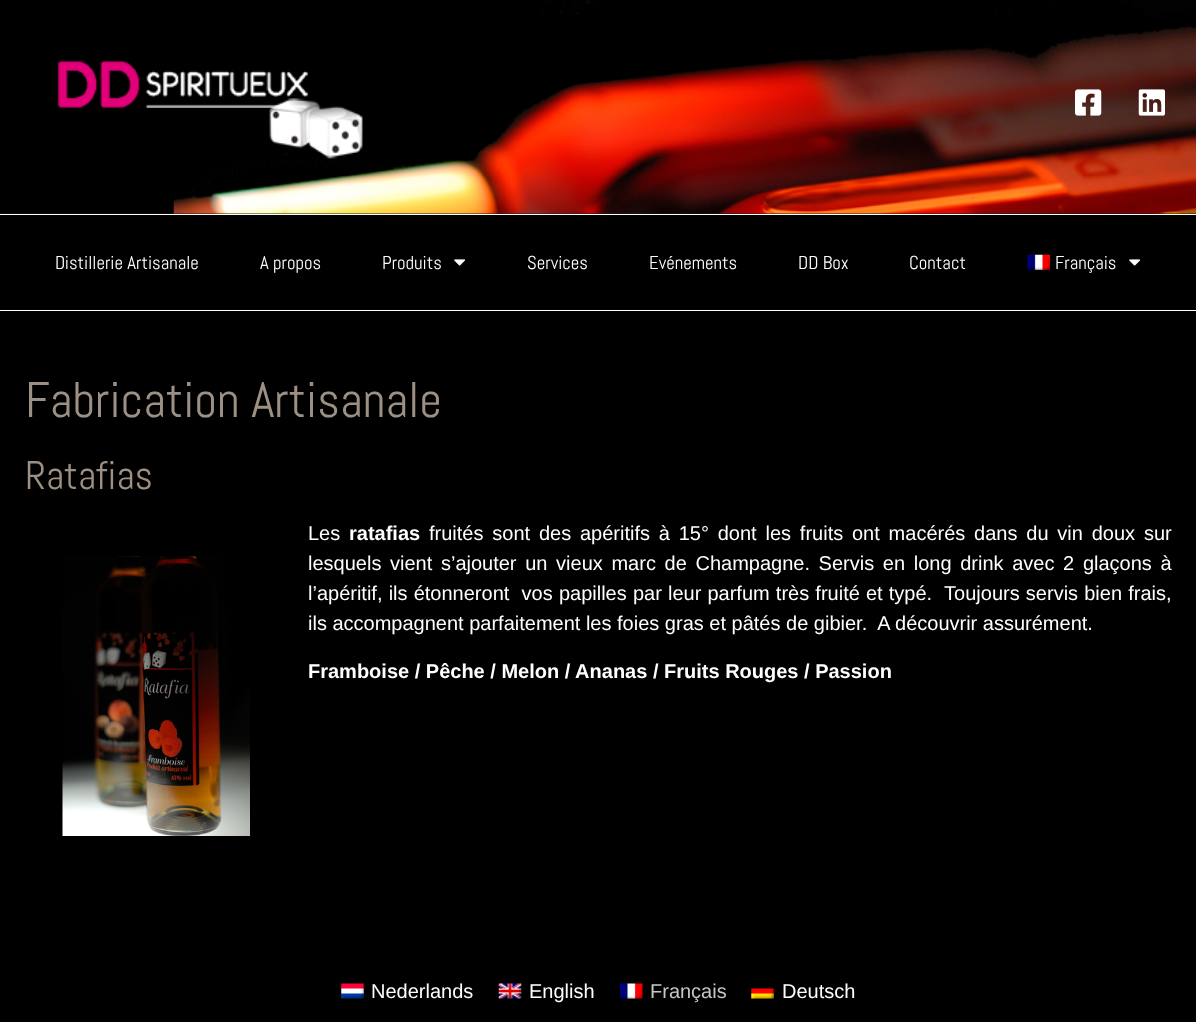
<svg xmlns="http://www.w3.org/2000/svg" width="1196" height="1022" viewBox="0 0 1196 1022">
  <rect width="100%" height="100%" fill="rgb(0,0,0)"/>
  <rect x="0" y="213" width="1196" height="1" fill="rgb(28,28,28)"/>
  <image x="0" y="0" width="1196" height="214" href="pic1.png"/>
  <image x="57" y="61" width="306" height="98" href="pic2.png"/>
  <image x="1075" y="89" width="27" height="27" href="pic3.png"/>
  <image x="1138" y="89" width="27" height="27" href="pic4.png"/>
  <rect x="0" y="214" width="1196" height="1" fill="rgb(255,255,255)"/>
  <rect x="0" y="310" width="1196" height="1" fill="rgb(255,255,255)"/>
  <g font-family="Abel" font-size="18.75" fill="rgb(255,255,255)">
    <text x="55" y="269">Distillerie Artisanale</text>
    <text x="260" y="269">A propos</text>
    <text x="382" y="269">Produits</text>
  </g>
  <image x="454" y="259" width="11" height="7" href="pic5.png"/>
  <g font-family="Abel" font-size="18.75" fill="rgb(255,255,255)">
    <text x="527" y="269">Services</text>
    <text x="649" y="269">Evénements</text>
    <text x="798" y="269">DD Box</text>
    <text x="909" y="269">Contact</text>
  </g>
  <image x="1027" y="254" width="23" height="16" href="pic6.png"/>
  <text x="1055" y="269" font-family="Abel" font-size="18.75" fill="rgb(255,255,255)">Français</text>
  <image x="1129" y="259" width="11" height="7" href="pic5.png"/>
  <text x="25" y="417" font-family="Abel" font-size="50" fill="rgb(156,143,131)">Fabrication Artisanale</text>
  <text x="25" y="489" font-family="Abel" font-size="40" fill="rgb(156,143,131)">Ratafias</text>
  <text x="308" y="540" font-family="Liberation Sans" font-size="20" fill="rgb(255,255,255)">Les</text>
  <text x="349" y="540" font-family="Liberation Sans" font-size="20" font-weight="bold" fill="rgb(255,255,255)">ratafias</text>
  <text x="429" y="540" word-spacing="3.25" font-family="Liberation Sans" font-size="20" fill="rgb(255,255,255)">fruités sont des apéritifs à 15° dont les fruits ont macérés dans du vin doux sur</text>
  <image x="62" y="556" width="188" height="280" href="pic7.png"/>
  <g font-family="Liberation Sans" font-size="20" fill="rgb(255,255,255)">
    <text xml:space="preserve"><tspan x="308" y="570" word-spacing="3.1">lesquels vient s’ajouter un vieux marc de Champagne. Servis en long drink avec 2 glaçons à</tspan><tspan x="308" y="600" word-spacing="0.6">l’apéritif, ils étonneront  vos papilles par leur parfum très fruité et typé.  Toujours servis bien frais,</tspan><tspan x="308" y="630">ils accompagnent parfaitement les foies gras et pâtés de gibier.  A découvrir assurément.</tspan></text>
  </g>
  <text x="308" y="678" font-family="Liberation Sans" font-size="20" font-weight="bold" fill="rgb(255,255,255)">Framboise / Pêche / Melon / Ananas / Fruits Rouges / Passion</text>
  <image x="341" y="983" width="23" height="16" href="pic8.png"/>
  <text x="371" y="998" font-family="Liberation Sans" font-size="20" fill="rgb(255,255,255)">Nederlands</text>
  <image x="498" y="983" width="24" height="16" href="pic9.png"/>
  <text x="529" y="998" font-family="Liberation Sans" font-size="20" fill="rgb(255,255,255)">English</text>
  <image x="620" y="983" width="23" height="16" href="pic10.png"/>
  <text x="650" y="998" font-family="Liberation Sans" font-size="20" fill="rgb(198,198,198)">Français</text>
  <image x="751" y="988" width="23" height="11" href="pic11.png"/>
  <text x="782" y="998" font-family="Liberation Sans" font-size="20" fill="rgb(255,255,255)">Deutsch</text>
</svg>
